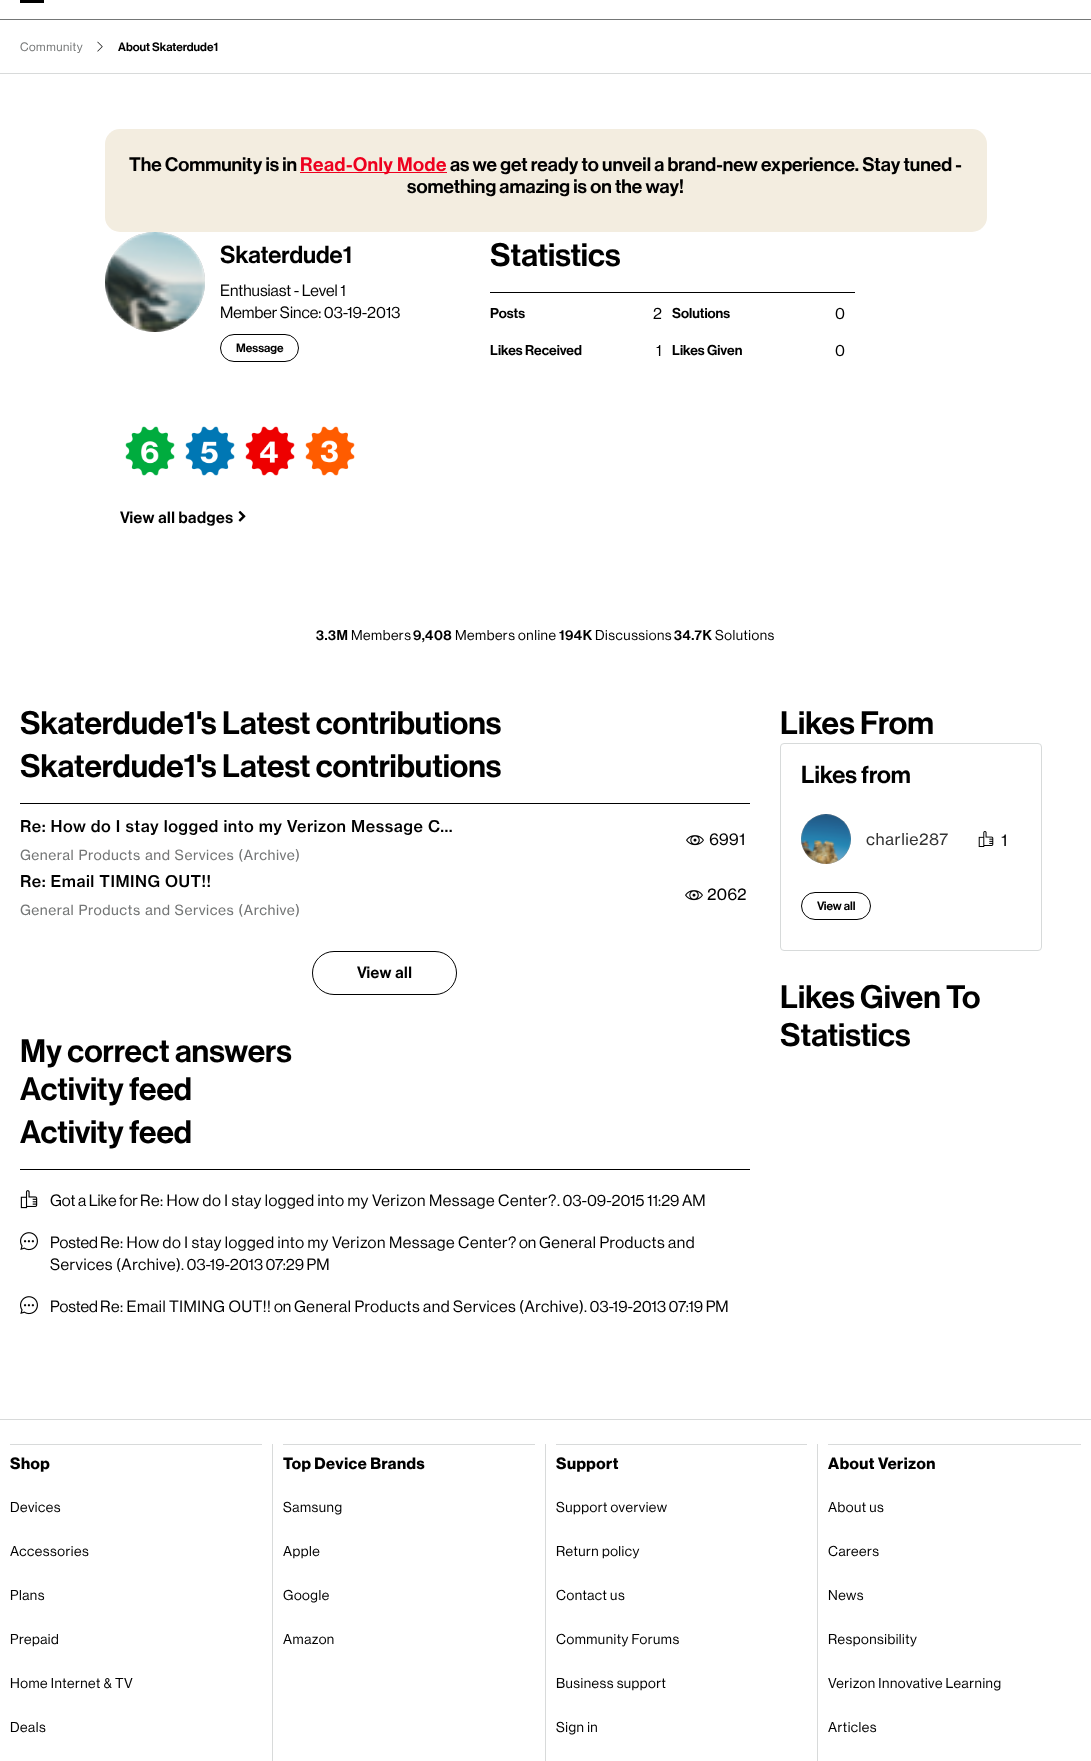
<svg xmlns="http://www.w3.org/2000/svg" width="1091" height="1761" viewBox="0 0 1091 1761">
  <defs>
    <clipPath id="clip1"><path d="M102 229H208V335H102ZM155 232C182.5 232 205 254.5 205 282C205 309.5 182.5 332 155 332C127.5 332 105 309.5 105 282C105 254.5 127.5 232 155 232Z" clip-rule="evenodd"/></clipPath>
  </defs>
  <rect width="100%" height="100%" fill="rgb(255,255,255)"/>
  <rect x="20" y="0" width="24" height="3" fill="rgb(0,0,0)"/>
  <rect x="0" y="73" width="1091" height="1" fill="rgb(216,218,218)"/>
  <rect x="0" y="19" width="1091" height="1" fill="rgb(116,118,118)"/>
  <text x="20" y="51" font-family="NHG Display" font-size="12" letter-spacing="0.5" fill="rgb(116,118,118)">Community</text>
  <image x="97" y="41" width="6" height="11" href="pic1.png"/>
  <text x="118" y="51" font-family="NHG Display" font-size="12" font-weight="500" fill="rgb(0,0,0)">About Skaterdude1</text>
  <rect x="105" y="129" width="882" height="103" rx="15" fill="rgb(243,237,224)"/>
  <text x="129" y="171" font-family="NHG Display" font-size="19.2" font-weight="500" fill="rgb(0,0,0)">The Community is in</text>
  <rect x="300" y="172" width="147" height="1" fill="rgb(238,0,30)"/>
  <text x="300" y="171" font-family="NHG Display" font-size="19.2" font-weight="500" letter-spacing="0.5" fill="rgb(238,0,30)">Read-Only Mode</text>
  <g font-family="NHG Display" font-size="19.2" font-weight="500" fill="rgb(0,0,0)">
    <text x="450" y="171">as we get ready to unveil a brand-new experience. Stay tuned -</text>
    <text x="407" y="193">something amazing is on the way!</text>
  </g>
  <g clip-path="url(#clip1)">
    <rect x="105" y="232" width="100" height="100" rx="50" fill="rgb(153,153,153)" filter="blur(0.5px)"/>
  </g>
  <image x="105" y="232" width="100" height="100" href="pic2.png"/>
  <text x="220" y="263" font-family="NHG Display" font-size="24" font-weight="500" fill="rgb(0,0,0)">Skaterdude1</text>
  <g font-family="NHG Display" font-size="16" fill="rgb(0,0,0)">
    <text>
      <tspan x="220" y="296">Enthusiast - Level 1</tspan>
      <tspan x="220" y="318">Member Since: 03-19-2013</tspan>
    </text>
  </g>
  <rect x="220.5" y="334.5" width="78" height="27" rx="13.5" fill="none" stroke="rgb(0,0,0)"/>
  <text x="236" y="352" font-family="NHG Display" font-size="12" font-weight="500" fill="rgb(0,0,0)">Message</text>
  <rect x="490" y="292" width="365" height="1" fill="rgb(0,0,0)"/>
  <text x="490" y="266" font-family="NHG Display" font-size="32" font-weight="500" fill="rgb(0,0,0)">Statistics</text>
  <text x="490" y="318" font-family="NHG Display" font-size="14" font-weight="500" fill="rgb(0,0,0)">Posts</text>
  <text x="653" y="319" font-family="NHG Display" font-size="16" fill="rgb(0,0,0)">2</text>
  <text x="672" y="318" font-family="NHG Display" font-size="14" font-weight="500" fill="rgb(0,0,0)">Solutions</text>
  <text x="835" y="319" font-family="NHG Display" font-size="16" fill="rgb(0,0,0)">0</text>
  <text x="490" y="355" font-family="NHG Display" font-size="14" font-weight="500" fill="rgb(0,0,0)">Likes Received</text>
  <text x="656" y="356" font-family="NHG Display" font-size="16" fill="rgb(0,0,0)">1</text>
  <text x="672" y="355" font-family="NHG Display" font-size="14" font-weight="500" fill="rgb(0,0,0)">Likes Given</text>
  <text x="835" y="356" font-family="NHG Display" font-size="16" fill="rgb(0,0,0)">0</text>
  <image x="125" y="426" width="50" height="50" href="pic3.png"/>
  <image x="185" y="426" width="50" height="50" href="pic4.png"/>
  <image x="245" y="426" width="50" height="50" href="pic5.png"/>
  <image x="305" y="426" width="50" height="50" href="pic6.png"/>
  <text x="120" y="523" font-family="NHG Display" font-size="16" font-weight="500" letter-spacing="0.5" fill="rgb(0,0,0)">View all badges</text>
  <image x="238" y="510" width="8" height="12" href="pic7.png"/>
  <text x="316" y="640" font-family="NHG Display" font-size="14" font-weight="500" letter-spacing="0.5" fill="rgb(0,0,0)">3.3M</text>
  <text x="351" y="640" font-family="NHG Display" font-size="14" letter-spacing="0.5" fill="rgb(0,0,0)">Members</text>
  <text x="413" y="640" font-family="NHG Display" font-size="14" font-weight="500" letter-spacing="0.5" fill="rgb(0,0,0)">9,408</text>
  <text x="455" y="640" font-family="NHG Display" font-size="14" letter-spacing="0.5" fill="rgb(0,0,0)">Members online</text>
  <text x="559" y="640" font-family="NHG Display" font-size="14" font-weight="500" letter-spacing="0.5" fill="rgb(0,0,0)">194K</text>
  <text x="595" y="640" font-family="NHG Display" font-size="14" letter-spacing="0.5" fill="rgb(0,0,0)">Discussions</text>
  <text x="674" y="640" font-family="NHG Display" font-size="14" font-weight="500" letter-spacing="0.5" fill="rgb(0,0,0)">34.7K</text>
  <text x="715" y="640" font-family="NHG Display" font-size="14" letter-spacing="0.5" fill="rgb(0,0,0)">Solutions</text>
  <text x="20" y="734" font-family="NHG Display" font-size="32" font-weight="500" fill="rgb(0,0,0)">Skaterdude1's Latest contributions</text>
  <rect x="20" y="803" width="730" height="1" fill="rgb(0,0,0)"/>
  <text x="20" y="777" font-family="NHG Display" font-size="32" font-weight="500" fill="rgb(0,0,0)">Skaterdude1's Latest contributions</text>
  <text x="20" y="832" font-family="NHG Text" font-size="16" font-weight="500" letter-spacing="0.5" fill="rgb(0,0,0)">Re: How do I stay logged into my Verizon Message C...</text>
  <text x="20" y="860" font-family="NHG Text" font-size="13.9" letter-spacing="0.5" fill="rgb(116,118,118)">General Products and Services (Archive)</text>
  <image x="686" y="835" width="18" height="11" href="pic8.png"/>
  <text x="709" y="845" font-family="NHG Text" font-size="16" fill="rgb(0,0,0)">6991</text>
  <text x="20" y="887" font-family="NHG Text" font-size="16" font-weight="500" letter-spacing="0.5" fill="rgb(0,0,0)">Re: Email TIMING OUT!!</text>
  <text x="20" y="915" font-family="NHG Text" font-size="13.9" letter-spacing="0.5" fill="rgb(116,118,118)">General Products and Services (Archive)</text>
  <image x="685" y="890" width="18" height="11" href="pic8.png"/>
  <text x="707" y="900" font-family="NHG Text" font-size="16" fill="rgb(0,0,0)">2062</text>
  <rect x="312.5" y="951.5" width="144" height="43" rx="21.5" fill="none" stroke="rgb(0,0,0)"/>
  <text x="357" y="978" font-family="NHG Display" font-size="16" font-weight="500" letter-spacing="0.5" fill="rgb(0,0,0)">View all</text>
  <g font-family="NHG Display" font-size="32" font-weight="500" fill="rgb(0,0,0)">
    <text>
      <tspan x="20" y="1062">My correct answers</tspan>
      <tspan x="20" y="1100">Activity feed</tspan>
    </text>
  </g>
  <rect x="20" y="1169" width="730" height="1" fill="rgb(0,0,0)"/>
  <text x="20" y="1143" font-family="NHG Display" font-size="32" font-weight="500" fill="rgb(0,0,0)">Activity feed</text>
  <image x="20" y="1190" width="18" height="19" href="pic9.png"/>
  <text x="50" y="1206" font-family="NHG Display" font-size="16" fill="rgb(0,0,0)">Got a Like for</text>
  <text x="140" y="1206" font-family="NHG Display" font-size="16" letter-spacing="0.5" fill="rgb(0,0,0)">Re: How do I stay logged into my Verizon Message Center?</text>
  <text x="557" y="1206" font-family="NHG Display" font-size="16" fill="rgb(0,0,0)">. 03-09-2015 11:29 AM</text>
  <image x="20" y="1232" width="18" height="19" href="pic10.png"/>
  <text x="50" y="1248" font-family="NHG Display" font-size="16" fill="rgb(0,0,0)">Posted</text>
  <text x="100" y="1248" font-family="NHG Display" font-size="16" letter-spacing="0.5" fill="rgb(0,0,0)">Re: How do I stay logged into my Verizon Message Center?</text>
  <text x="519" y="1248" font-family="NHG Display" font-size="16" fill="rgb(0,0,0)">on</text>
  <g font-family="NHG Display" font-size="16" letter-spacing="0.5" fill="rgb(0,0,0)">
    <text x="539" y="1248">General Products and</text>
    <text x="50" y="1270">Services (Archive)</text>
  </g>
  <text x="181" y="1270" font-family="NHG Display" font-size="16" fill="rgb(0,0,0)">. 03-19-2013 07:29 PM</text>
  <image x="20" y="1296" width="18" height="19" href="pic10.png"/>
  <text x="50" y="1312" font-family="NHG Display" font-size="16" fill="rgb(0,0,0)">Posted</text>
  <text x="100" y="1312" font-family="NHG Display" font-size="16" letter-spacing="0.5" fill="rgb(0,0,0)">Re: Email TIMING OUT!!</text>
  <text x="274" y="1312" font-family="NHG Display" font-size="16" fill="rgb(0,0,0)">on</text>
  <text x="294" y="1312" font-family="NHG Display" font-size="16" letter-spacing="0.5" fill="rgb(0,0,0)">General Products and Services (Archive)</text>
  <text x="584" y="1312" font-family="NHG Display" font-size="16" fill="rgb(0,0,0)">. 03-19-2013 07:19 PM</text>
  <text x="780" y="734" font-family="NHG Display" font-size="32" font-weight="500" fill="rgb(0,0,0)">Likes From</text>
  <rect x="780.5" y="743.5" width="261" height="207" rx="3.5" fill="none" stroke="rgb(215,218,218)"/>
  <text x="801" y="783" font-family="NHG Display" font-size="24" font-weight="500" fill="rgb(0,0,0)">Likes from</text>
  <rect x="801" y="814" width="50" height="50" rx="25" fill="rgb(153,153,153)" filter="blur(0.5px)"/>
  <image x="801" y="814" width="50" height="50" href="pic11.png"/>
  <text x="866" y="845" font-family="NHG Text" font-size="16" letter-spacing="0.5" fill="rgb(51,51,51)">charlie287</text>
  <image x="978" y="831" width="16" height="16" href="pic12.png"/>
  <text x="1001" y="846" font-family="NHG Text" font-size="16" fill="rgb(0,0,0)">1</text>
  <rect x="801.5" y="892.5" width="69" height="27" rx="13.5" fill="none" stroke="rgb(0,0,0)"/>
  <text x="817" y="910" font-family="NHG Display" font-size="12" font-weight="500" fill="rgb(0,0,0)">View all</text>
  <g font-family="NHG Display" font-size="32" font-weight="500" fill="rgb(0,0,0)">
    <text>
      <tspan x="780" y="1008">Likes Given To</tspan>
      <tspan x="780" y="1046">Statistics</tspan>
    </text>
  </g>
  <rect x="0" y="1419" width="1091" height="1" fill="rgb(216,218,218)"/>
  <rect x="272" y="1444" width="1" height="317" fill="rgb(216,218,218)"/>
  <rect x="10" y="1444" width="252" height="1" fill="rgb(216,218,218)"/>
  <text x="10" y="1469" font-family="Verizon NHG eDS" font-size="16" font-weight="bold" letter-spacing="0.5" fill="rgb(0,0,0)">Shop</text>
  <g font-family="Verizon NHG eDS" font-size="14" letter-spacing="0.5" fill="rgb(0,0,0)">
    <text x="10" y="1512">Devices</text>
    <text x="10" y="1556">Accessories</text>
    <text x="10" y="1600">Plans</text>
    <text x="10" y="1644">Prepaid</text>
    <text x="10" y="1688">Home Internet &amp; TV</text>
    <text x="10" y="1732">Deals</text>
  </g>
  <rect x="545" y="1444" width="1" height="317" fill="rgb(216,218,218)"/>
  <rect x="283" y="1444" width="252" height="1" fill="rgb(216,218,218)"/>
  <text x="283" y="1469" font-family="Verizon NHG eDS" font-size="16" font-weight="bold" letter-spacing="0.5" fill="rgb(0,0,0)">Top Device Brands</text>
  <g font-family="Verizon NHG eDS" font-size="14" letter-spacing="0.5" fill="rgb(0,0,0)">
    <text x="283" y="1512">Samsung</text>
    <text x="283" y="1556">Apple</text>
    <text x="283" y="1600">Google</text>
    <text x="283" y="1644">Amazon</text>
  </g>
  <rect x="817" y="1444" width="1" height="317" fill="rgb(216,218,218)"/>
  <rect x="556" y="1444" width="251" height="1" fill="rgb(216,218,218)"/>
  <text x="556" y="1469" font-family="Verizon NHG eDS" font-size="16" font-weight="bold" letter-spacing="0.5" fill="rgb(0,0,0)">Support</text>
  <g font-family="Verizon NHG eDS" font-size="14" letter-spacing="0.5" fill="rgb(0,0,0)">
    <text x="556" y="1512">Support overview</text>
    <text x="556" y="1556">Return policy</text>
    <text x="556" y="1600">Contact us</text>
    <text x="556" y="1644">Community Forums</text>
    <text x="556" y="1688">Business support</text>
    <text x="556" y="1732">Sign in</text>
  </g>
  <rect x="828" y="1444" width="253" height="1" fill="rgb(216,218,218)"/>
  <text x="828" y="1469" font-family="Verizon NHG eDS" font-size="16" font-weight="bold" letter-spacing="0.5" fill="rgb(0,0,0)">About Verizon</text>
  <g font-family="Verizon NHG eDS" font-size="14" letter-spacing="0.5" fill="rgb(0,0,0)">
    <text x="828" y="1512">About us</text>
    <text x="828" y="1556">Careers</text>
    <text x="828" y="1600">News</text>
    <text x="828" y="1644">Responsibility</text>
    <text x="828" y="1688">Verizon Innovative Learning</text>
    <text x="828" y="1732">Articles</text>
  </g>
</svg>
